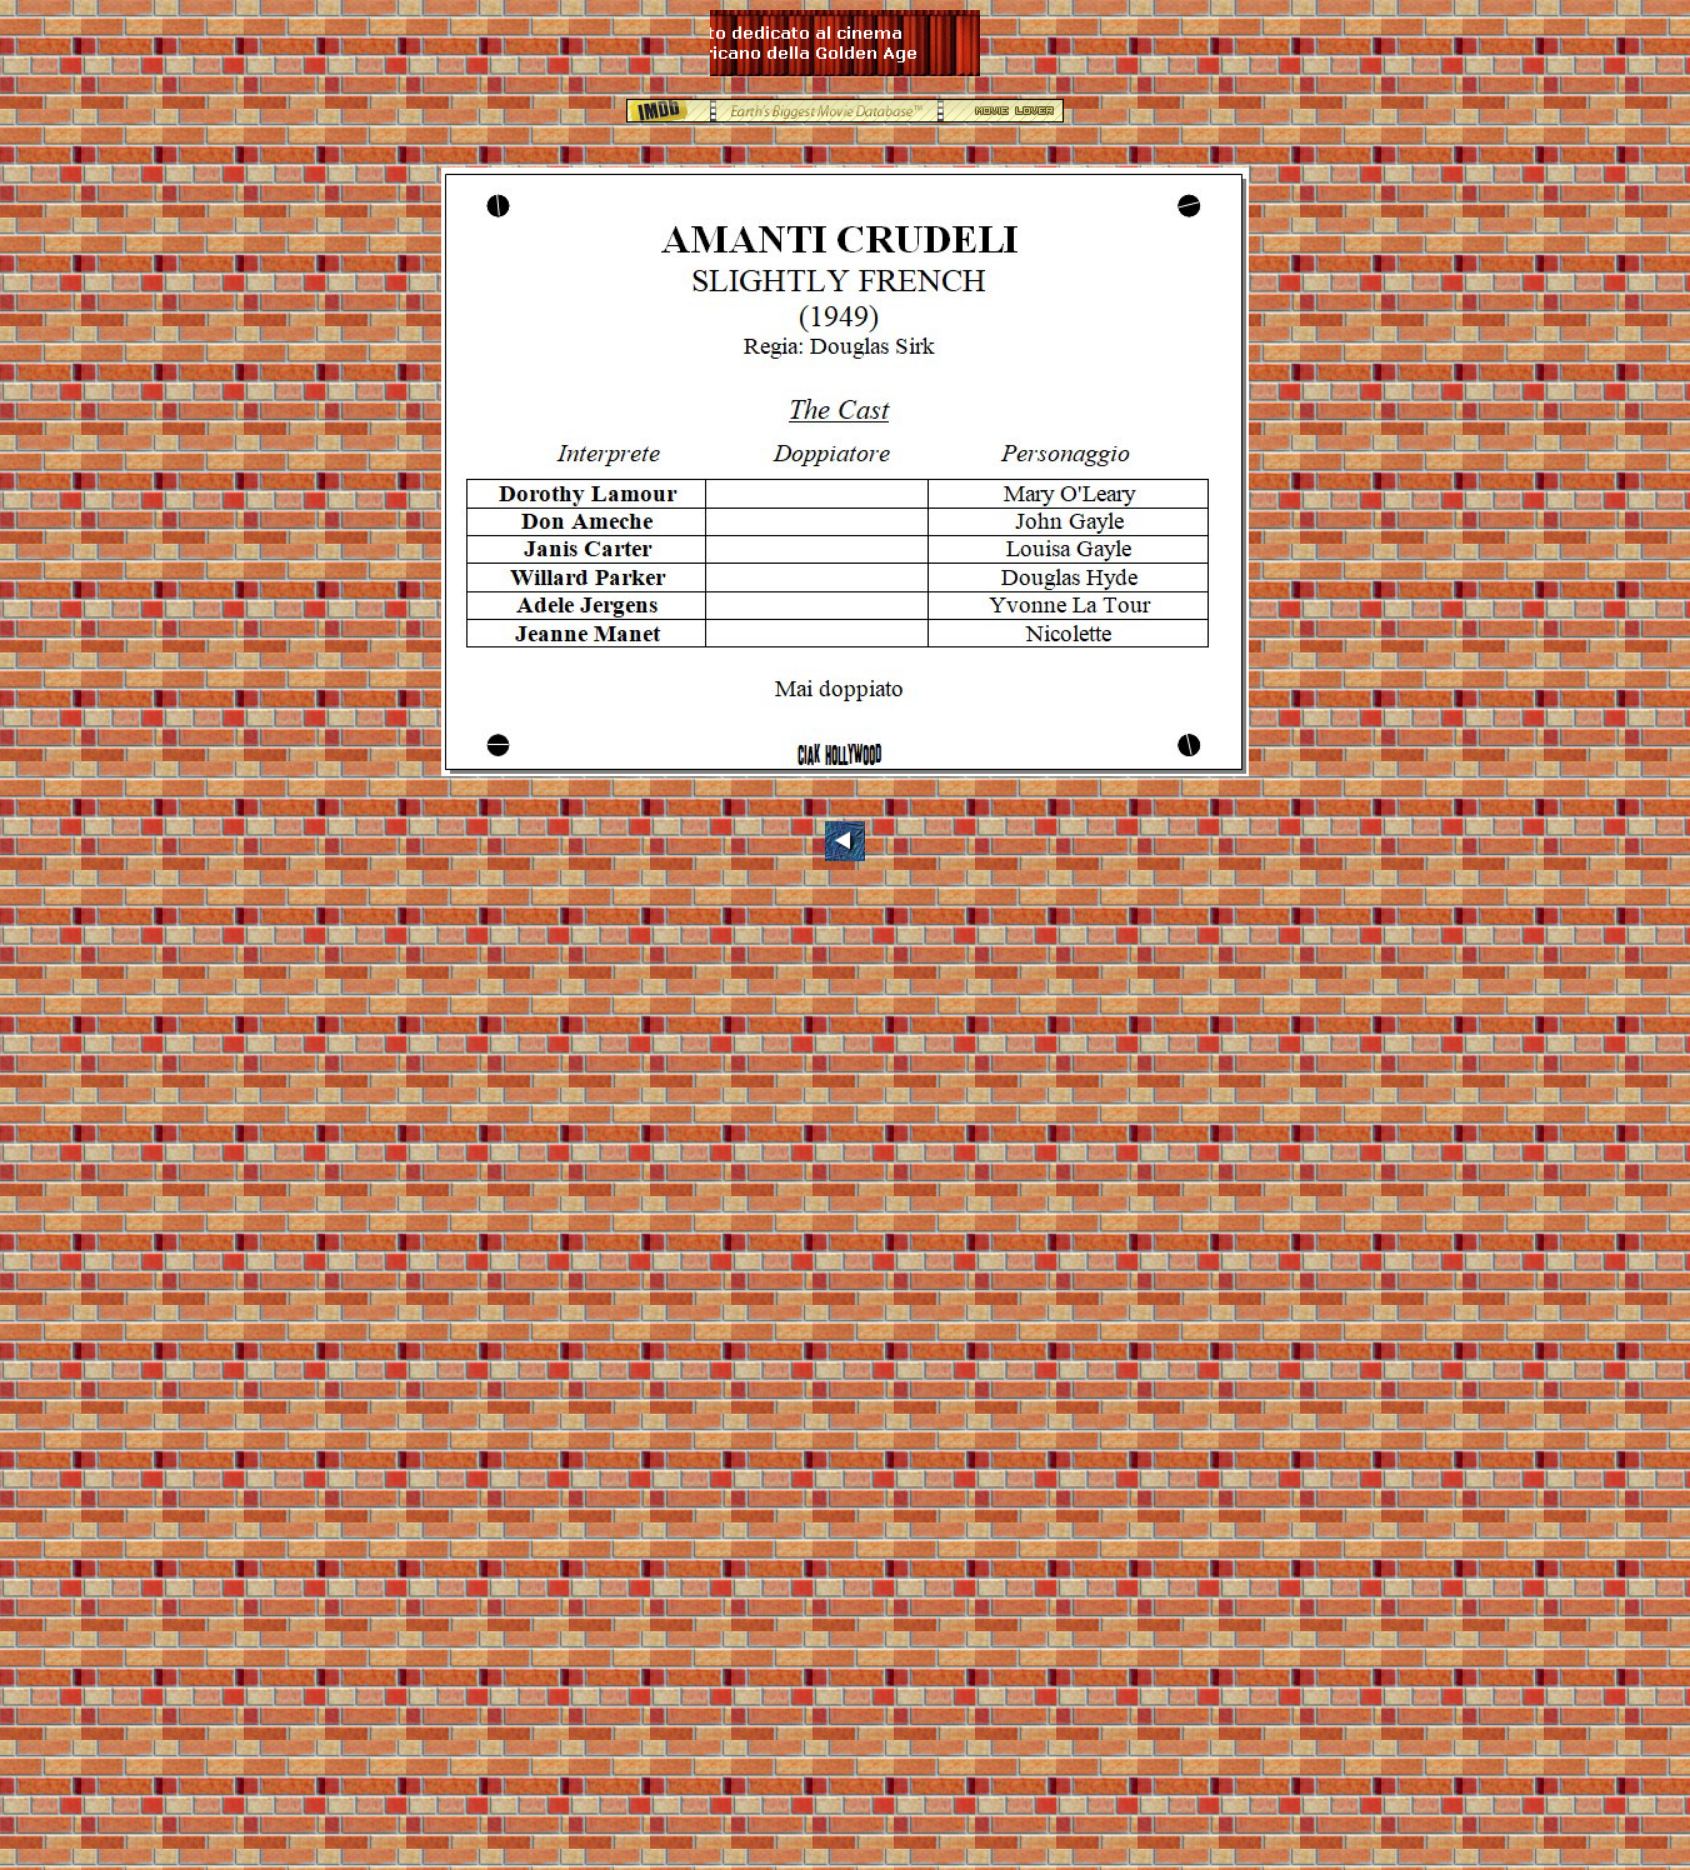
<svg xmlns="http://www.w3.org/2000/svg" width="1690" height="1870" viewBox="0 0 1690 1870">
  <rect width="100%" height="100%" fill="rgb(255,255,255)"/>
  <image x="0" y="0" width="1690" height="1870" href="pic1.png"/>
  <image x="710" y="10" width="270" height="67" href="pic2.png"/>
  <image x="626" y="98" width="438" height="25" href="pic3.png"/>
  <image x="441" y="167" width="808" height="610" href="pic4.png"/>
  <image x="825" y="821" width="40" height="41" href="pic5.png"/>
</svg>
